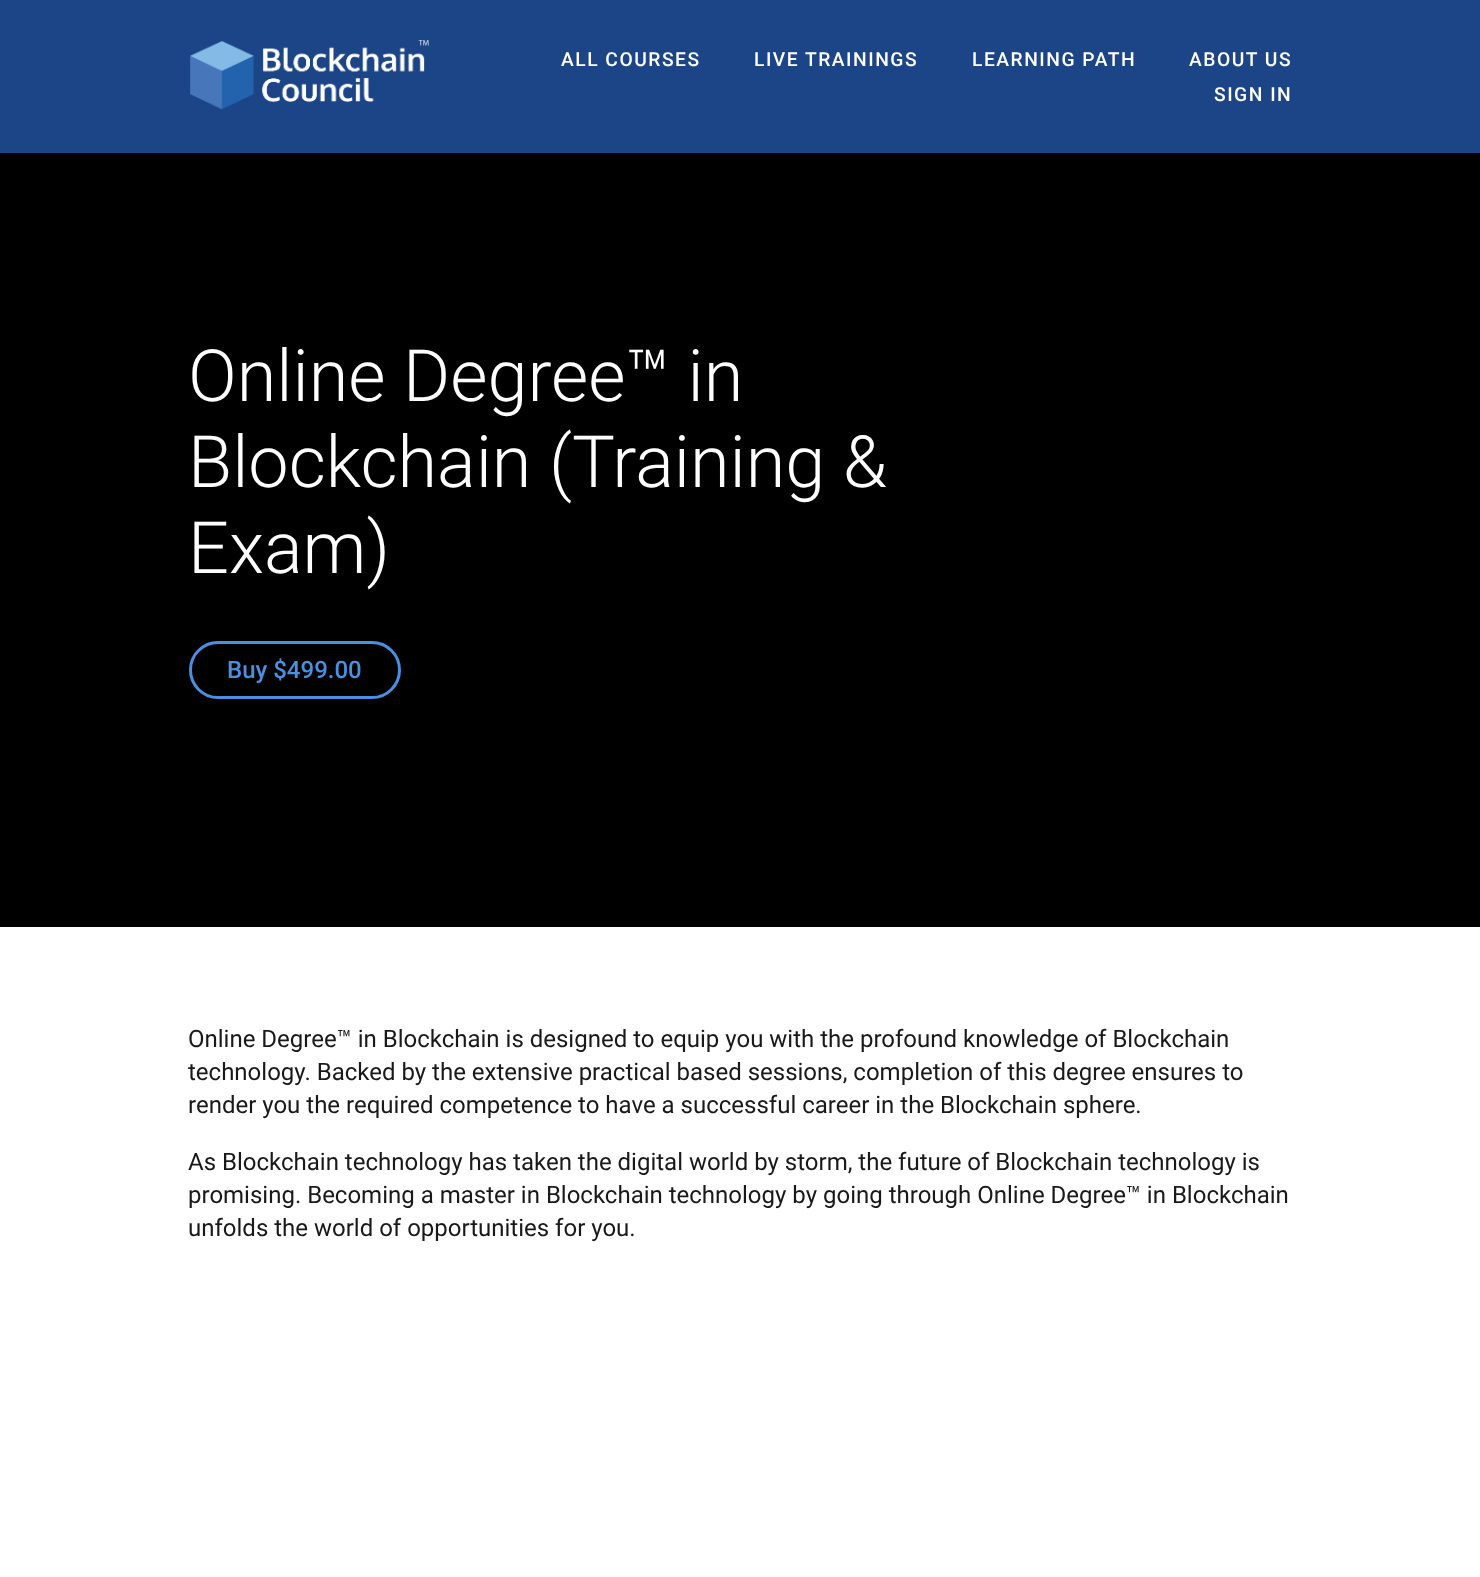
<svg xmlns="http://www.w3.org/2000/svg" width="1480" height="1577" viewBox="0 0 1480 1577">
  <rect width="100%" height="100%" fill="rgb(255,255,255)"/>
  <rect x="0" y="0" width="1480" height="153" fill="rgb(28,69,135)"/>
  <image x="190" y="40" width="239" height="70" href="pic1.png"/>
  <g font-family="Roboto" font-size="19.25" font-weight="500" letter-spacing="1.5" fill="rgb(255,255,255)">
    <text x="561" y="66">ALL COURSES</text>
    <text x="754" y="66">LIVE TRAININGS</text>
    <text x="972" y="66">LEARNING PATH</text>
    <text x="1189" y="66">ABOUT US</text>
    <text x="1214" y="101">SIGN IN</text>
  </g>
  <rect x="0" y="153" width="1480" height="774" fill="rgb(0,0,0)"/>
  <g font-family="Roboto" font-size="72" font-weight="300" fill="rgb(255,255,255)">
    <text>
      <tspan x="188" y="401">Online Degree™ in</tspan>
      <tspan x="188" y="487">Blockchain (Training &amp;</tspan>
      <tspan x="188" y="573">Exam)</tspan>
    </text>
  </g>
  <rect x="190.5" y="642.5" width="209" height="55" rx="27.5" fill="none" stroke="rgb(74,144,226)" stroke-width="3"/>
  <text x="227" y="678" font-family="Roboto" font-size="24" font-weight="500" fill="rgb(74,144,226)">Buy $499.00</text>
  <g font-family="Roboto" font-size="24" fill="rgb(25,25,25)">
    <text>
      <tspan x="188" y="1047">Online Degree™ in Blockchain is designed to equip you with the profound knowledge of Blockchain</tspan>
      <tspan x="188" y="1080">technology. Backed by the extensive practical based sessions, completion of this degree ensures to</tspan>
      <tspan x="188" y="1113">render you the required competence to have a successful career in the Blockchain sphere.</tspan>
    </text>
    <text>
      <tspan x="188" y="1170">As Blockchain technology has taken the digital world by storm, the future of Blockchain technology is</tspan>
      <tspan x="188" y="1203">promising. Becoming a master in Blockchain technology by going through Online Degree™ in Blockchain</tspan>
      <tspan x="188" y="1236">unfolds the world of opportunities for you.</tspan>
    </text>
  </g>
</svg>
